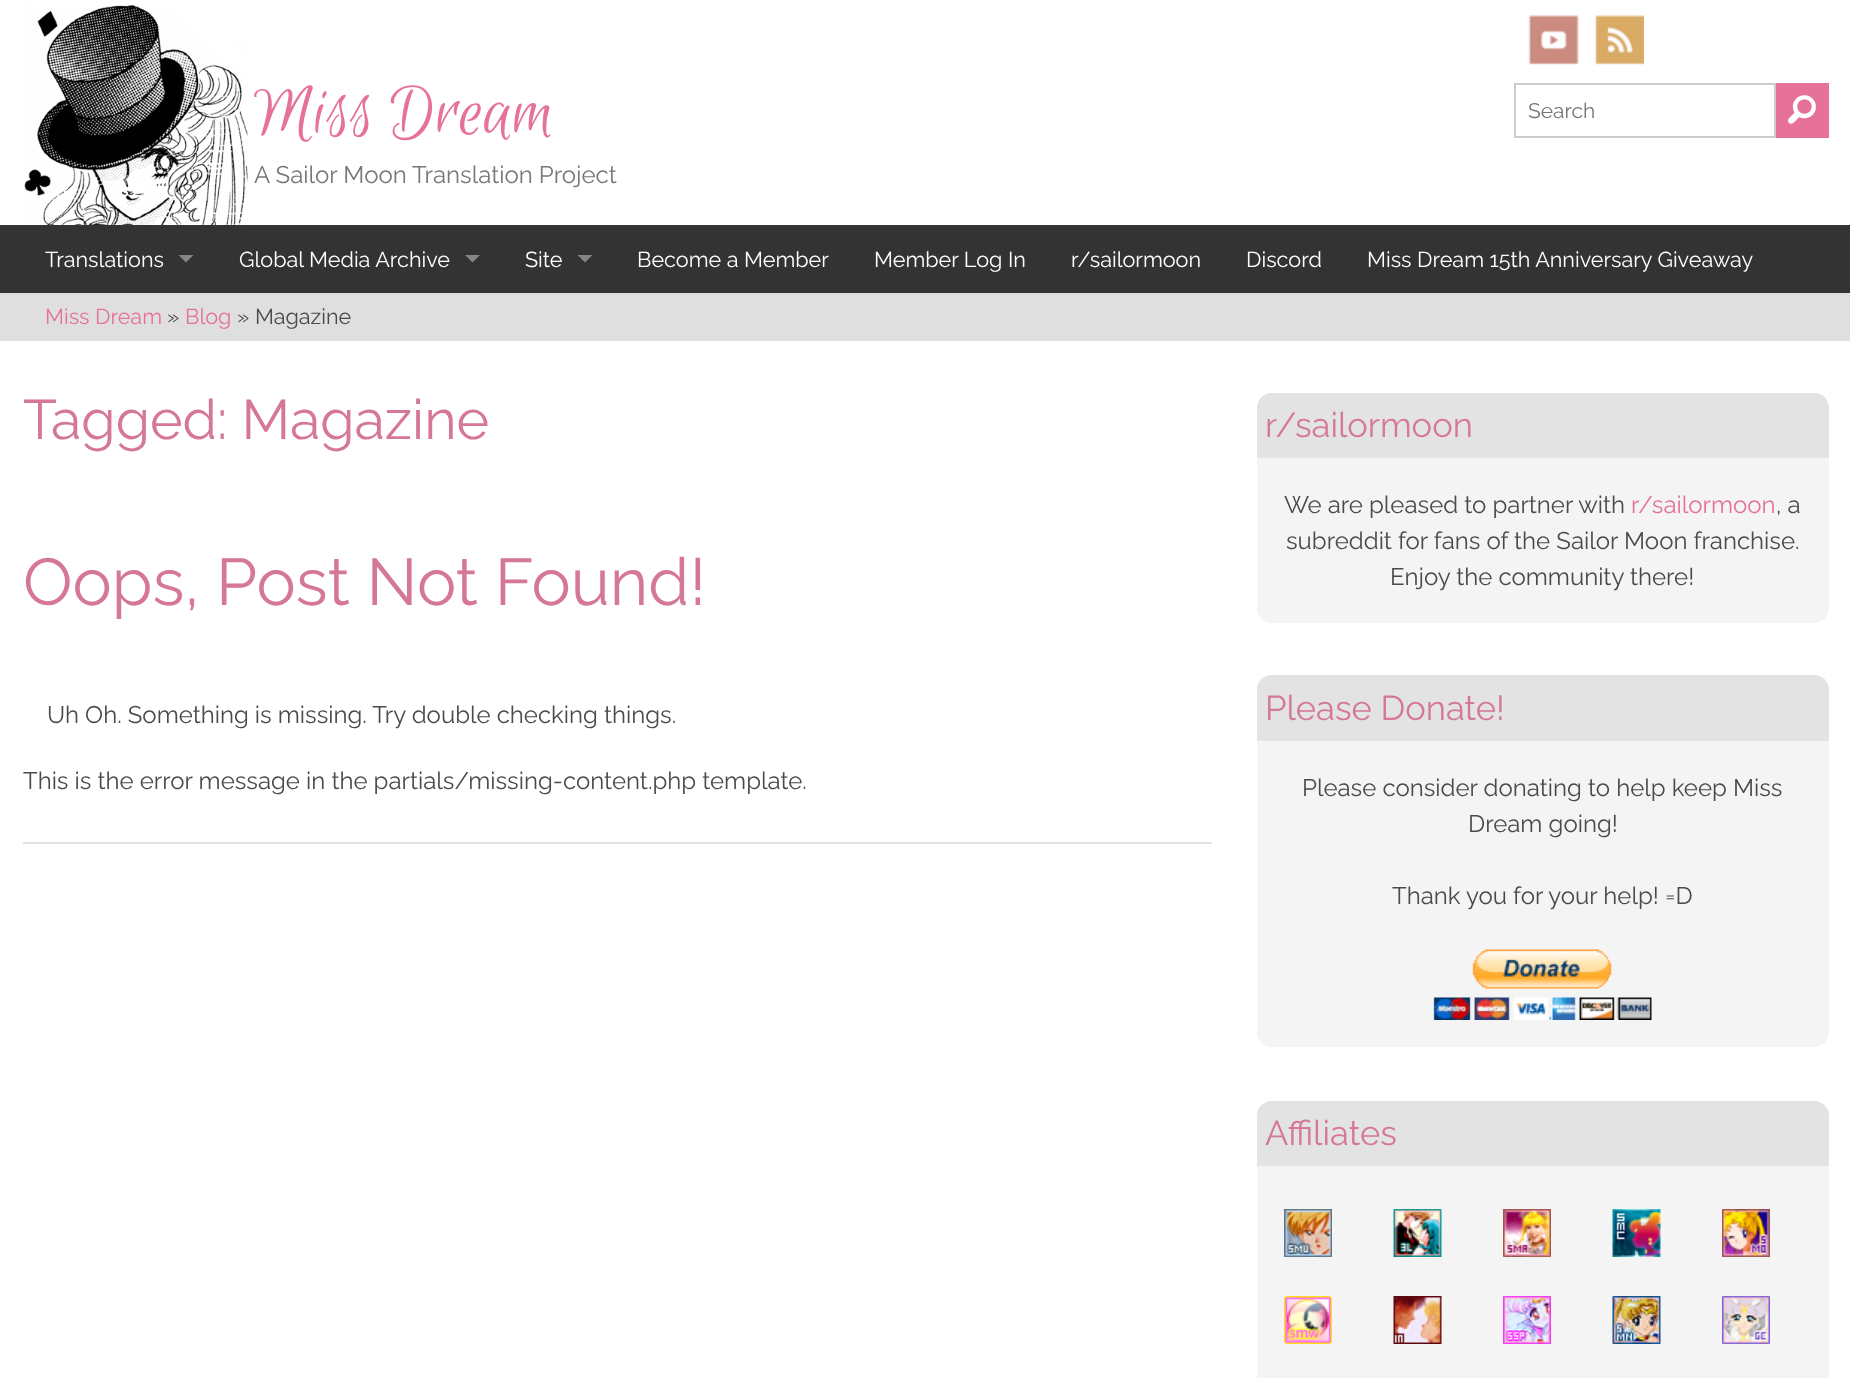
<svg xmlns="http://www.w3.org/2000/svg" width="1850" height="1378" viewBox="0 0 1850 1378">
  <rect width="100%" height="100%" fill="rgb(255,255,255)"/>
  <image x="24" y="5" width="224" height="220" href="pic1.png"/>
  <text x="254" y="133" font-family="Euphoria Script" font-size="77" fill="rgb(231,114,153)">Miss Dream</text>
  <text x="254" y="183" font-family="Raleway" font-size="24" fill="rgb(119,119,119)">A Sailor Moon Translation Project</text>
  <image x="1528" y="15" width="51" height="50" href="pic2.png"/>
  <image x="1594" y="15" width="50" height="50" href="pic3.png"/>
  <rect x="1515" y="84" width="260" height="53" fill="none" stroke="rgb(204,204,204)" stroke-width="2"/>
  <text x="1528" y="118" font-family="Raleway" font-size="21" fill="rgb(119,119,119)">Search</text>
  <rect x="1776" y="83" width="53" height="55" fill="rgb(231,114,153)"/>
  <image x="1788" y="95" width="28" height="29" href="pic4.png"/>
  <rect x="0" y="225" width="1850" height="68" fill="rgb(51,51,51)"/>
  <text x="45" y="267" font-family="Raleway" font-size="21.6" fill="rgb(255,255,255)">Translations</text>
  <path d="M178.5 255H193.5L186 262.5Z" fill="rgb(133,133,133)"/>
  <text x="239" y="267" font-family="Raleway" font-size="21.6" fill="rgb(255,255,255)">Global Media Archive</text>
  <path d="M465 255H480L472.5 262.5Z" fill="rgb(133,133,133)"/>
  <text x="525" y="267" font-family="Raleway" font-size="21.6" fill="rgb(255,255,255)">Site</text>
  <path d="M577.5 255H592.5L585 262.5Z" fill="rgb(133,133,133)"/>
  <g font-family="Raleway" font-size="21.6" fill="rgb(255,255,255)">
    <text x="637" y="267">Become a Member</text>
    <text x="874" y="267">Member Log In</text>
    <text x="1071" y="267">r/sailormoon</text>
    <text x="1246" y="267">Discord</text>
    <text x="1367" y="267">Miss Dream 15th Anniversary Giveaway</text>
  </g>
  <rect x="0" y="293" width="1850" height="48" fill="rgb(223,223,223)"/>
  <text x="45" y="324" font-family="Raleway" font-size="21.6" fill="rgb(231,114,153)">Miss Dream</text>
  <text x="167" y="324" font-family="Raleway" font-size="21.6" fill="rgb(74,74,74)">»</text>
  <text x="185" y="324" font-family="Raleway" font-size="21.6" fill="rgb(231,114,153)">Blog</text>
  <text x="237" y="324" font-family="Raleway" font-size="21.6" fill="rgb(74,74,74)">» Magazine</text>
  <text x="23" y="439" font-family="Raleway" font-size="55.5" fill="rgb(213,119,150)">Tagged: Magazine</text>
  <text x="23" y="605" font-family="Raleway" font-size="66" fill="rgb(213,119,150)">Oops, Post Not Found!</text>
  <text x="47" y="723" font-family="Raleway" font-size="24" fill="rgb(74,74,74)">Uh Oh. Something is missing. Try double checking things.</text>
  <rect x="23" y="842" width="1189" height="2" fill="rgb(227,227,228)"/>
  <text x="23" y="789" font-family="Raleway" font-size="24" fill="rgb(74,74,74)">This is the error message in the partials/missing-content.php template.</text>
  <rect x="1257" y="393" width="572" height="230" rx="15" fill="rgb(244,244,244)"/>
  <path d="M1272 393H1814C1822.5 393 1829 399.5 1829 408V458H1257V408C1257 399.5 1263.5 393 1272 393Z" fill="rgb(227,227,228)"/>
  <text x="1265" y="437" font-family="Raleway" font-size="34.5" fill="rgb(213,119,150)">r/sailormoon</text>
  <text x="1284" y="513" font-family="Raleway" font-size="24" fill="rgb(74,74,74)">We are pleased to partner with</text>
  <text x="1631" y="513" font-family="Raleway" font-size="24" fill="rgb(231,114,153)">r/sailormoon</text>
  <g font-family="Raleway" font-size="24" fill="rgb(74,74,74)">
    <text x="1776" y="513">, a</text>
    <text x="1286" y="549">subreddit for fans of the Sailor Moon franchise.</text>
    <text x="1390" y="585">Enjoy the community there!</text>
  </g>
  <rect x="1257" y="675" width="572" height="372" rx="15" fill="rgb(244,244,244)"/>
  <path d="M1272 675H1814C1822.5 675 1829 681.5 1829 690V741H1257V690C1257 681.5 1263.5 675 1272 675Z" fill="rgb(227,227,228)"/>
  <text x="1265" y="720" font-family="Raleway" font-size="34.5" fill="rgb(213,119,150)">Please Donate!</text>
  <g font-family="Raleway" font-size="24" fill="rgb(74,74,74)">
    <text x="1302" y="796">Please consider donating to help keep Miss</text>
    <text x="1468" y="832">Dream going!</text>
    <text x="1392" y="904">Thank you for your help! =D</text>
  </g>
  <image x="1433" y="949" width="219" height="71" href="pic5.png"/>
  <rect x="1257" y="1101" width="572" height="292" rx="15" fill="rgb(244,244,244)"/>
  <path d="M1272 1101H1814C1822.5 1101 1829 1107.5 1829 1116V1166H1257V1116C1257 1107.5 1263.5 1101 1272 1101Z" fill="rgb(227,227,228)"/>
  <text x="1265" y="1145" font-family="Raleway" font-size="34.5" fill="rgb(213,119,150)">Affiliates</text>
  <image x="1284" y="1209" width="48" height="48" href="pic6.png"/>
  <image x="1393" y="1209" width="49" height="48" href="pic7.png"/>
  <image x="1503" y="1209" width="48" height="48" href="pic8.png"/>
  <image x="1612" y="1209" width="49" height="48" href="pic9.png"/>
  <image x="1722" y="1209" width="48" height="48" href="pic10.png"/>
  <image x="1284" y="1296" width="48" height="48" href="pic11.png"/>
  <image x="1393" y="1296" width="49" height="48" href="pic12.png"/>
  <image x="1503" y="1296" width="48" height="48" href="pic13.png"/>
  <image x="1612" y="1296" width="49" height="48" href="pic14.png"/>
  <image x="1722" y="1296" width="48" height="48" href="pic15.png"/>
</svg>
